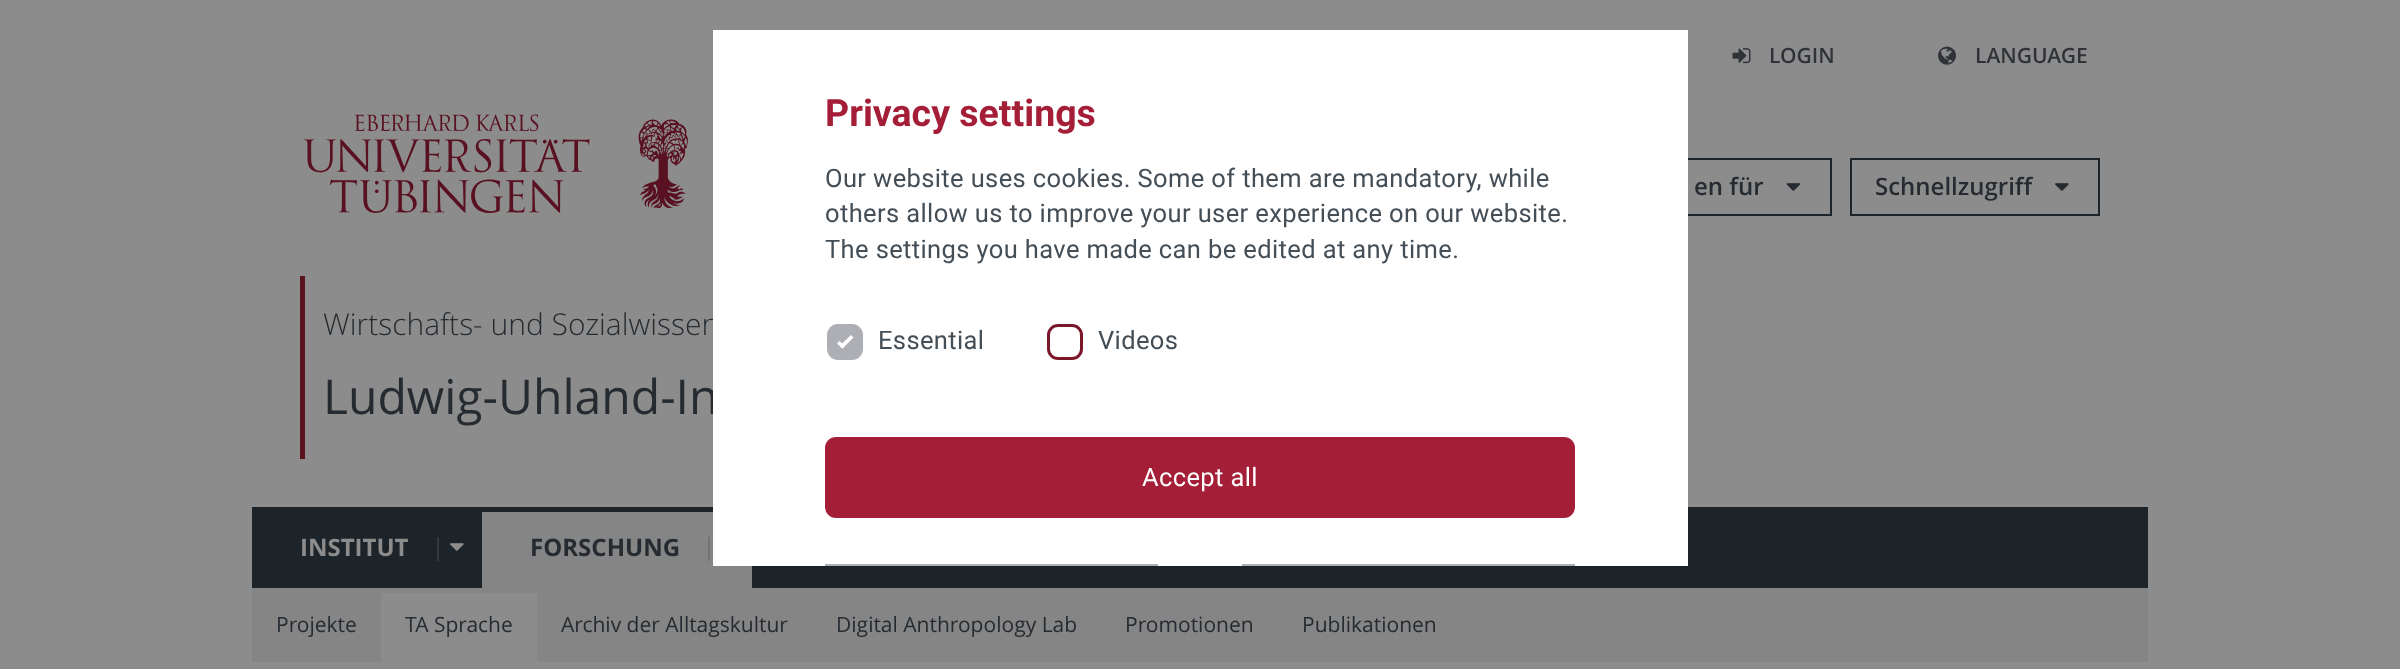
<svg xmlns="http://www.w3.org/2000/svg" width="2400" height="669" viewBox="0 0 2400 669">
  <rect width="100%" height="100%" fill="rgb(140,140,140)"/>
  <image x="1732" y="48" width="19" height="16" href="pic1.png"/>
  <text x="1769" y="63" font-family="Open Sans" font-size="21" font-weight="600" fill="rgb(47,51,56)">LOGIN</text>
  <image x="1938" y="46" width="18" height="19" href="pic2.png"/>
  <text x="1975" y="63" font-family="Open Sans" font-size="21" font-weight="600" fill="rgb(47,51,56)">LANGUAGE</text>
  <image x="303" y="114" width="385" height="99" href="pic3.png"/>
  <rect x="1531" y="159" width="300" height="56" fill="none" stroke="rgb(28,36,41)" stroke-width="2"/>
  <text x="1694" y="195" font-family="Open Sans" font-size="24" font-weight="600" fill="rgb(37,43,48)">en für</text>
  <image x="1786" y="183" width="15" height="8" href="pic4.png"/>
  <rect x="1851" y="159" width="248" height="56" fill="none" stroke="rgb(28,36,41)" stroke-width="2"/>
  <text x="1875" y="195" font-family="Open Sans" font-size="24" font-weight="600" fill="rgb(37,43,48)">Schnellzugriff</text>
  <image x="2055" y="183" width="14" height="8" href="pic5.png"/>
  <rect x="300" y="276" width="5" height="183" fill="rgb(91,17,30)"/>
  <text x="323" y="335" font-family="Open Sans" font-size="30" font-weight="300" fill="rgb(37,43,48)">Wirtschafts- und Sozialwissen</text>
  <text x="323" y="414" font-family="Open Sans" font-size="48" fill="rgb(37,43,48)">Ludwig-Uhland-In</text>
  <rect x="252" y="507" width="1896" height="81" fill="rgb(28,36,41)"/>
  <text x="300" y="556" font-family="Open Sans" font-size="24" font-weight="bold" fill="rgb(140,140,140)">INSTITUT</text>
  <rect x="437" y="537" width="2" height="24" fill="rgb(50,57,61)"/>
  <image x="450" y="543" width="14" height="8" href="pic6.png"/>
  <rect x="482" y="512" width="270" height="76" fill="rgb(133,133,133)"/>
  <text x="530" y="556" font-family="Open Sans" font-size="24" font-weight="bold" fill="rgb(37,43,48)">FORSCHUNG</text>
  <rect x="708" y="537" width="2" height="24" fill="rgb(114,115,116)"/>
  <rect x="252" y="588" width="1896" height="74" fill="rgb(133,133,133)"/>
  <text x="276" y="632" font-family="Open Sans" font-size="21" fill="rgb(37,43,48)">Projekte</text>
  <rect x="381" y="593" width="156" height="69" fill="rgb(140,140,140)"/>
  <g font-family="Open Sans" font-size="21" fill="rgb(37,43,48)">
    <text x="405" y="632">TA Sprache</text>
    <text x="561" y="632">Archiv der Alltagskultur</text>
    <text x="836" y="632">Digital Anthropology Lab</text>
    <text x="1125" y="632">Promotionen</text>
    <text x="1302" y="632">Publikationen</text>
  </g>
  <rect x="713" y="30" width="975" height="536" fill="rgb(255,255,255)"/>
  <text x="825" y="126" font-family="Roboto" font-size="37.5" font-weight="bold" fill="rgb(165,30,55)">Privacy settings</text>
  <g font-family="Roboto" font-size="25.5" letter-spacing="0.38" fill="rgb(68,78,87)">
    <text>
      <tspan x="825" y="187">Our website uses cookies. Some of them are mandatory, while</tspan>
      <tspan x="825" y="222">others allow us to improve your user experience on our website.</tspan>
      <tspan x="825" y="258">The settings you have made can be edited at any time.</tspan>
    </text>
  </g>
  <rect x="828.5" y="325.5" width="33" height="33" rx="9.5" fill="rgb(173,175,181)" stroke="rgb(173,175,181)" stroke-width="3"/>
  <text x="878" y="349" font-family="Roboto" font-size="25.5" letter-spacing="0.38" fill="rgb(68,78,87)">Essential</text>
  <path d="M839.5 346L851 335L853.5 337.5L842.5 348.5Z" fill="rgb(255,255,255)"/>
  <path d="M837 343.5L839.5 341L845 346L842.5 348.5Z" fill="rgb(255,255,255)"/>
  <rect x="1048.5" y="325.5" width="33" height="33" rx="9.5" fill="none" stroke="rgb(122,22,41)" stroke-width="3"/>
  <text x="1098" y="349" font-family="Roboto" font-size="25.5" letter-spacing="0.38" fill="rgb(68,78,87)">Videos</text>
  <rect x="825" y="437" width="750" height="81" rx="11" fill="rgb(165,30,55)"/>
  <text x="1142" y="486" font-family="Roboto" font-size="25.5" letter-spacing="0.38" fill="rgb(255,255,255)">Accept all</text>
  <rect x="825" y="564" width="333" height="2" fill="rgb(173,175,181)"/>
  <rect x="1242" y="564" width="333" height="2" fill="rgb(173,175,181)"/>
</svg>
